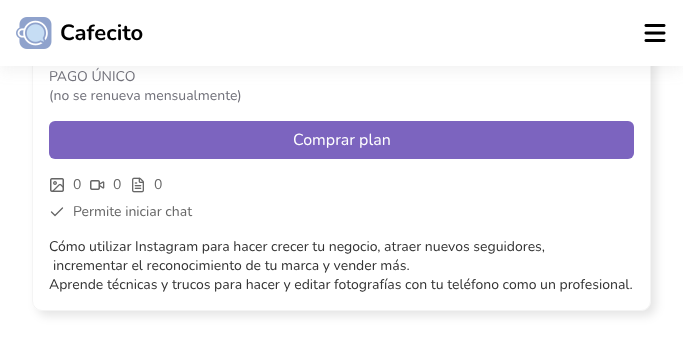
<svg xmlns="http://www.w3.org/2000/svg" width="683" height="343" viewBox="0 0 683 343">
  <defs>
    <clipPath id="clip1"><path d="M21 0H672V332H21ZM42-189H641C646.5-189 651-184.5 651-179V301C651 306.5 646.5 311 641 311H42C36.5 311 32 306.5 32 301V-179C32-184.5 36.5-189 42-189Z" clip-rule="evenodd"/></clipPath>
  </defs>
  <rect width="100%" height="100%" fill="rgb(255,255,255)"/>
  <g clip-path="url(#clip1)">
    <rect x="37" y="-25" width="619" height="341" rx="10" fill="rgba(0,0,0,0.1)" filter="blur(5px)"/>
  </g>
  <rect x="32.5" y="-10.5" width="618" height="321" rx="9.5" fill="none" stroke="rgba(220,220,220,0.3)"/>
  <rect x="0" y="5" width="683" height="66" fill="rgba(128,128,128,0.1)" filter="blur(7.5px)"/>
  <rect x="0" y="0" width="683" height="66" fill="rgb(255,255,255)"/>
  <image x="16" y="17" width="36" height="32" href="pic1.png"/>
  <text x="60" y="40" font-family="Nunito" font-size="22" font-weight="bold" fill="rgb(0,0,0)">Cafecito</text>
  <image x="644" y="24" width="22" height="18" href="pic2.png"/>
  <g font-family="Nunito" font-size="14" fill="rgb(113,113,122)">
    <text>
      <tspan x="49" y="81">PAGO ÚNICO</tspan>
      <tspan x="49" y="100">(no se renueva mensualmente)</tspan>
    </text>
  </g>
  <rect x="49" y="121" width="585" height="38" rx="6" fill="rgb(124,100,191)"/>
  <text x="293" y="145" font-family="Nunito" font-size="16" fill="rgb(255,255,255)">Comprar plan</text>
  <image x="50" y="178" width="14" height="14" href="pic3.png"/>
  <text x="73" y="189" font-family="Nunito" font-size="14" fill="rgb(102,102,102)">0</text>
  <image x="90" y="180" width="15" height="10" href="pic4.png"/>
  <text x="113" y="189" font-family="Nunito" font-size="14" fill="rgb(102,102,102)">0</text>
  <image x="132" y="177" width="12" height="16" href="pic5.png"/>
  <text x="154" y="189" font-family="Nunito" font-size="14" fill="rgb(102,102,102)">0</text>
  <path d="M62.5 208L55 215.5L51.5 212" fill="none" stroke="rgb(102,102,102)" stroke-width="1.3" stroke-linecap="round" stroke-linejoin="round"/>
  <text x="73" y="216" font-family="Nunito" font-size="14" fill="rgb(102,102,102)">Permite iniciar chat</text>
  <g font-family="Nunito" font-size="14" fill="rgb(51,51,51)">
    <text x="49" y="251">Cómo utilizar Instagram para hacer crecer tu negocio, atraer nuevos seguidores,</text>
    <text x="53" y="270">incrementar el reconocimiento de tu marca y vender más.</text>
    <text x="49" y="289">Aprende técnicas y trucos para hacer y editar fotografías con tu teléfono como un profesional.</text>
  </g>
</svg>
